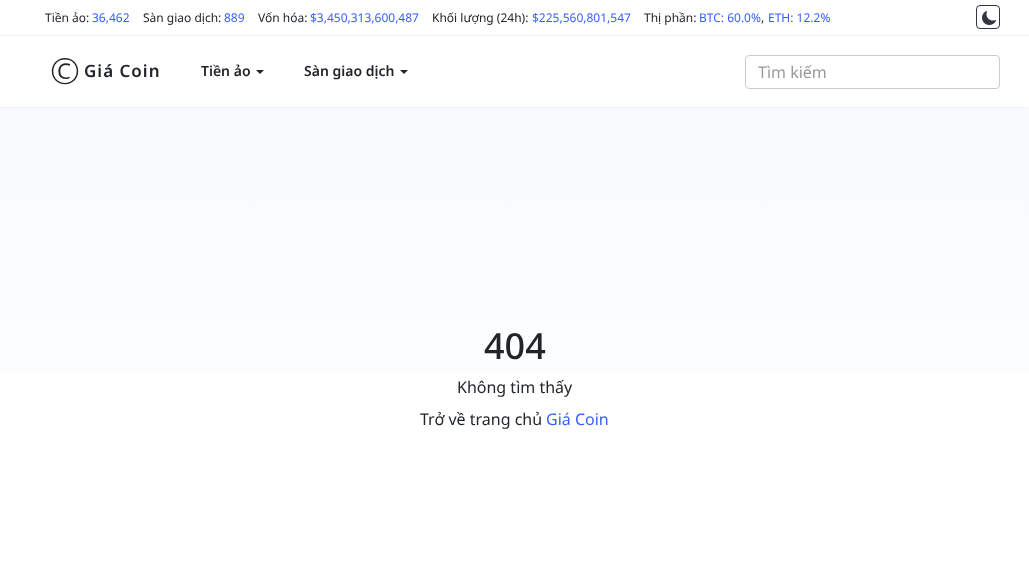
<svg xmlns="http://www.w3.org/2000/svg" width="1029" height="579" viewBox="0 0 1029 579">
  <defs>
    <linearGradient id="g1" gradientUnits="userSpaceOnUse" x1="515" y1="108" x2="515" y2="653"><stop offset="0" stop-color="rgb(248,250,253)"/><stop offset="0.76" stop-color="rgb(255,255,255)"/></linearGradient>
  </defs>
  <rect width="100%" height="100%" fill="rgb(255,255,255)"/>
  <rect x="0" y="35" width="1029" height="1" fill="rgb(239,242,245)"/>
  <text x="45" y="22" font-family="Noto Sans" font-size="12" fill="rgb(33,37,41)">Tiền ảo:</text>
  <text x="92" y="22" font-family="Noto Sans" font-size="12" fill="rgb(56,97,251)">36,462</text>
  <text x="143" y="22" font-family="Noto Sans" font-size="12" fill="rgb(33,37,41)">Sàn giao dịch:</text>
  <text x="224" y="22" font-family="Noto Sans" font-size="12" fill="rgb(56,97,251)">889</text>
  <text x="258" y="22" font-family="Noto Sans" font-size="12" fill="rgb(33,37,41)">Vốn hóa:</text>
  <text x="310" y="22" font-family="Noto Sans" font-size="12" fill="rgb(56,97,251)">$3,450,313,600,487</text>
  <text x="432" y="22" font-family="Noto Sans" font-size="12" fill="rgb(33,37,41)">Khối lượng (24h):</text>
  <text x="532" y="22" font-family="Noto Sans" font-size="12" fill="rgb(56,97,251)">$225,560,801,547</text>
  <text x="644" y="22" font-family="Noto Sans" font-size="12" fill="rgb(33,37,41)">Thị phần:</text>
  <text x="699" y="22" font-family="Noto Sans" font-size="12" fill="rgb(56,97,251)">BTC: 60.0%</text>
  <text x="761" y="22" font-family="Noto Sans" font-size="12" fill="rgb(33,37,41)">,</text>
  <text x="768" y="22" font-family="Noto Sans" font-size="12" fill="rgb(56,97,251)">ETH: 12.2%</text>
  <rect x="976.5" y="5.5" width="23" height="23" rx="3.5" fill="none" stroke="rgb(50,53,70)"/>
  <image x="982" y="11" width="14" height="14" href="pic1.png"/>
  <path d="M1029 108H0L1 107H1028Z" fill="rgb(239,242,245)"/>
  <text x="50" y="84" font-family="Noto Sans" font-size="36" font-weight="300" letter-spacing="1" fill="rgb(33,37,41)">©</text>
  <text x="84" y="77" font-family="Noto Sans" font-size="17" font-weight="600" letter-spacing="1" fill="rgb(33,37,41)">Giá Coin</text>
  <text x="201" y="76" font-family="Noto Sans" font-size="14" font-weight="600" fill="rgb(33,37,41)">Tiền ảo</text>
  <path d="M256 70H264L260 74Z" fill="rgb(33,37,41)"/>
  <text x="304" y="76" font-family="Noto Sans" font-size="14" font-weight="600" fill="rgb(33,37,41)">Sàn giao dịch</text>
  <path d="M400 70H408L404 74Z" fill="rgb(33,37,41)"/>
  <rect x="745.5" y="55.5" width="254" height="33" rx="3.5" fill="none" stroke="rgb(204,204,204)"/>
  <text x="758" y="78" font-family="Noto Sans" font-size="16" fill="rgb(153,153,153)">Tìm kiếm</text>
  <rect x="0" y="108" width="1029" height="266" fill="url(#g1)"/>
  <text x="484" y="359" font-family="Noto Sans" font-size="36" font-weight="500" fill="rgb(33,37,41)">404</text>
  <g font-family="Noto Sans" font-size="16" fill="rgb(33,37,41)">
    <text x="457" y="393">Không tìm thấy</text>
    <text x="420" y="425">Trở về trang chủ</text>
  </g>
  <text x="546" y="425" font-family="Noto Sans" font-size="16" fill="rgb(56,97,251)">Giá Coin</text>
</svg>
